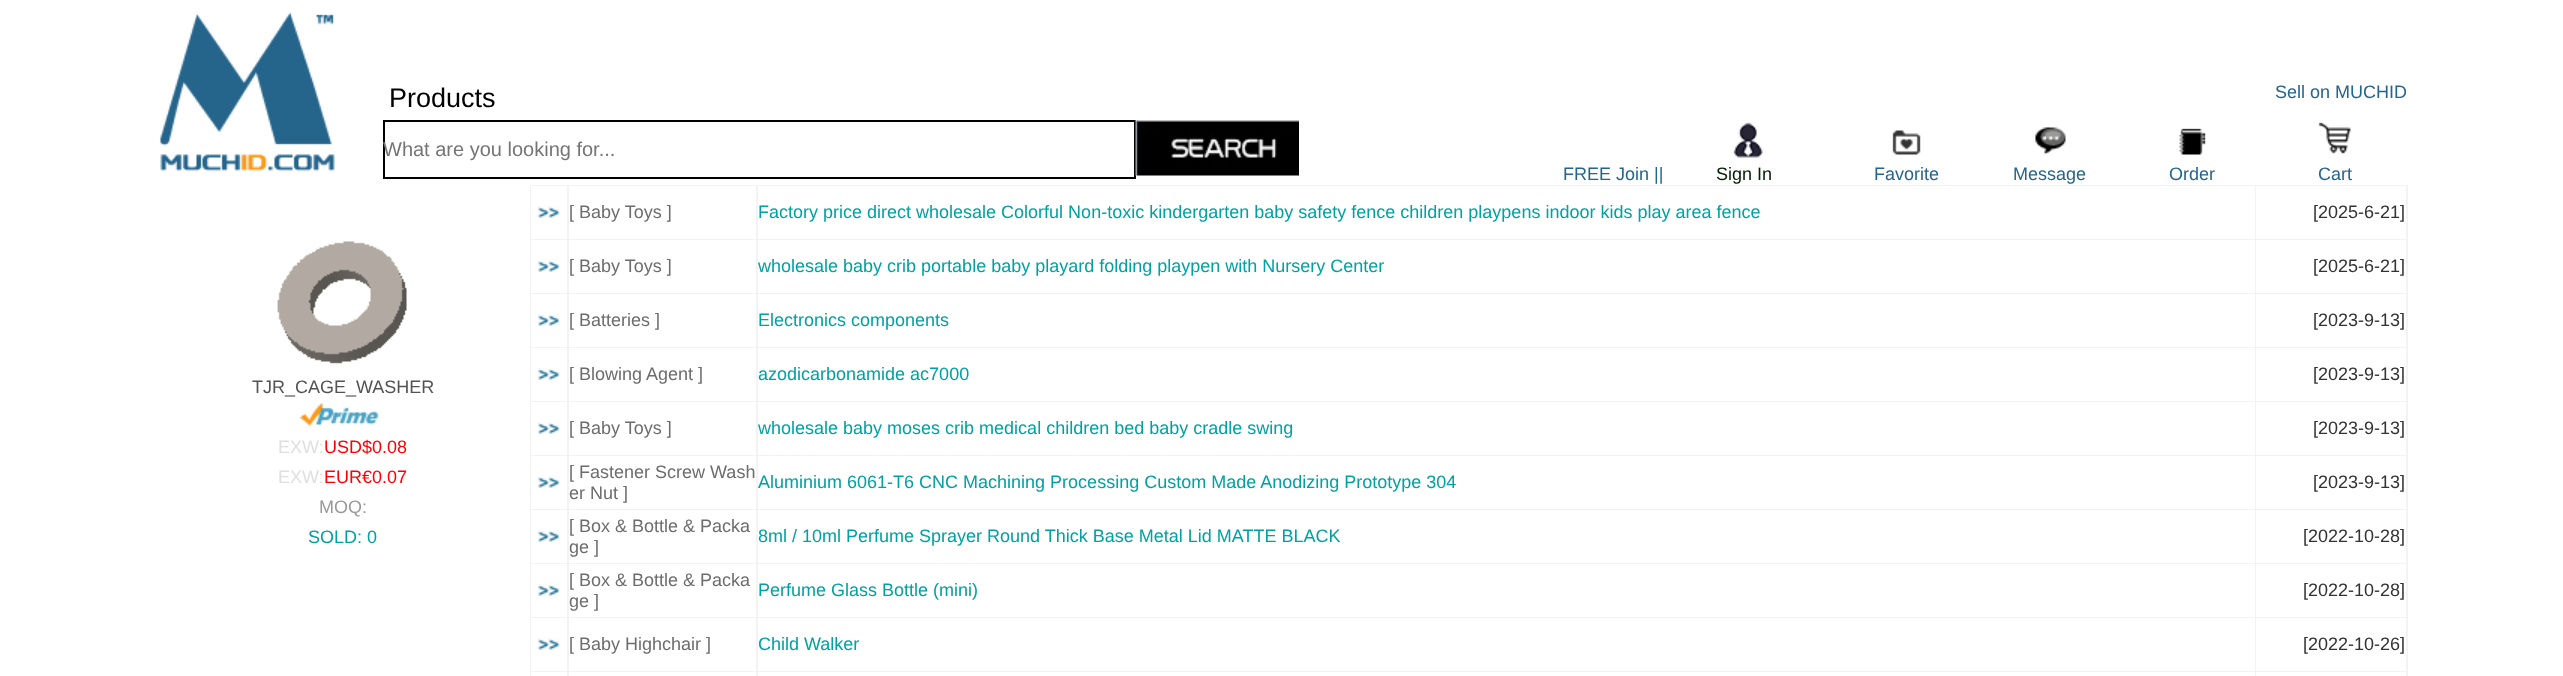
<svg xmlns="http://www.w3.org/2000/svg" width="2563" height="676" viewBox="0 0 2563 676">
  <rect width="100%" height="100%" fill="rgb(255,255,255)"/>
  <image x="160" y="12" width="175" height="160" href="pic1.png"/>
  <text x="389" y="107" font-family="Liberation Sans" font-size="27" fill="rgb(0,0,0)">Products</text>
  <text x="2275" y="98" font-family="Liberation Sans" font-size="18" fill="rgb(37,101,140)">Sell on MUCHID</text>
  <image x="1733" y="122" width="30" height="36" href="pic2.png"/>
  <image x="1892" y="130" width="29" height="25" href="pic3.png"/>
  <image x="2035" y="127" width="31" height="28" href="pic4.png"/>
  <image x="2179" y="128" width="27" height="27" href="pic5.png"/>
  <image x="2318" y="122" width="33" height="32" href="pic6.png"/>
  <text x="1563" y="180" font-family="Liberation Sans" font-size="18" fill="rgb(37,101,140)">FREE Join ||</text>
  <text x="1716" y="180" font-family="Liberation Sans" font-size="18" fill="rgb(2,31,0)">Sign In</text>
  <g font-family="Liberation Sans" font-size="18" fill="rgb(37,101,140)">
    <text x="1874" y="180">Favorite</text>
    <text x="2013" y="180">Message</text>
    <text x="2169" y="180">Order</text>
    <text x="2318" y="180">Cart</text>
  </g>
  <rect x="384" y="121" width="751" height="57" fill="none" stroke="rgb(0,0,0)" stroke-width="2"/>
  <text x="383" y="156" font-family="Liberation Sans" font-size="20" fill="rgb(117,117,117)">What are you looking for...</text>
  <image x="1135" y="120" width="164" height="56" href="pic7.png"/>
  <image x="277" y="241" width="130" height="123" href="pic8.png"/>
  <text x="252" y="393" font-family="Liberation Sans" font-size="18" fill="rgb(83,83,83)">TJR_CAGE_WASHER</text>
  <image x="299" y="403" width="80" height="24" href="pic9.png"/>
  <text x="278" y="453" font-family="Liberation Sans" font-size="18" fill="rgb(223,223,223)">EXW:</text>
  <text x="324" y="453" font-family="Liberation Sans" font-size="18" fill="rgb(255,0,0)">USD$0.08</text>
  <text x="278" y="483" font-family="Liberation Sans" font-size="18" fill="rgb(223,223,223)">EXW:</text>
  <text x="324" y="483" font-family="Liberation Sans" font-size="18" fill="rgb(255,0,0)">EUR€0.07</text>
  <text x="319" y="513" font-family="Liberation Sans" font-size="18" fill="rgb(153,153,153)">MOQ:</text>
  <text x="308" y="543" font-family="Liberation Sans" font-size="18" fill="rgb(0,161,163)">SOLD: 0</text>
  <rect x="530" y="185" width="1878" height="491" fill="rgb(243,243,243)"/>
  <rect x="531" y="186" width="36" height="53" fill="rgb(255,255,255)"/>
  <image x="537" y="205" width="23" height="13" href="pic10.png"/>
  <rect x="569" y="186" width="187" height="53" fill="rgb(255,255,255)"/>
  <text x="569" y="218" font-family="Liberation Sans" font-size="18" fill="rgb(109,109,109)">[ Baby Toys ]</text>
  <rect x="758" y="186" width="1497" height="53" fill="rgb(255,255,255)"/>
  <text x="758" y="218" font-family="Liberation Sans" font-size="18" fill="rgb(0,161,163)">Factory price direct wholesale Colorful Non-toxic kindergarten baby safety fence children playpens indoor kids play area fence</text>
  <rect x="2256" y="186" width="150" height="53" fill="rgb(255,255,255)"/>
  <text x="2313" y="218" font-family="Liberation Sans" font-size="18" fill="rgb(51,51,51)">[2025-6-21]</text>
  <rect x="531" y="240" width="36" height="53" fill="rgb(255,255,255)"/>
  <image x="537" y="259" width="23" height="13" href="pic10.png"/>
  <rect x="569" y="240" width="187" height="53" fill="rgb(255,255,255)"/>
  <text x="569" y="272" font-family="Liberation Sans" font-size="18" fill="rgb(109,109,109)">[ Baby Toys ]</text>
  <rect x="758" y="240" width="1497" height="53" fill="rgb(255,255,255)"/>
  <text x="758" y="272" font-family="Liberation Sans" font-size="18" fill="rgb(0,161,163)">wholesale baby crib portable baby playard folding playpen with Nursery Center</text>
  <rect x="2256" y="240" width="150" height="53" fill="rgb(255,255,255)"/>
  <text x="2313" y="272" font-family="Liberation Sans" font-size="18" fill="rgb(51,51,51)">[2025-6-21]</text>
  <rect x="531" y="294" width="36" height="53" fill="rgb(255,255,255)"/>
  <image x="537" y="313" width="23" height="13" href="pic10.png"/>
  <rect x="569" y="294" width="187" height="53" fill="rgb(255,255,255)"/>
  <text x="569" y="326" font-family="Liberation Sans" font-size="18" fill="rgb(109,109,109)">[ Batteries ]</text>
  <rect x="758" y="294" width="1497" height="53" fill="rgb(255,255,255)"/>
  <text x="758" y="326" font-family="Liberation Sans" font-size="18" fill="rgb(0,161,163)">Electronics components</text>
  <rect x="2256" y="294" width="150" height="53" fill="rgb(255,255,255)"/>
  <text x="2313" y="326" font-family="Liberation Sans" font-size="18" fill="rgb(51,51,51)">[2023-9-13]</text>
  <rect x="531" y="348" width="36" height="53" fill="rgb(255,255,255)"/>
  <image x="537" y="367" width="23" height="13" href="pic10.png"/>
  <rect x="569" y="348" width="187" height="53" fill="rgb(255,255,255)"/>
  <text x="569" y="380" font-family="Liberation Sans" font-size="18" fill="rgb(109,109,109)">[ Blowing Agent ]</text>
  <rect x="758" y="348" width="1497" height="53" fill="rgb(255,255,255)"/>
  <text x="758" y="380" font-family="Liberation Sans" font-size="18" fill="rgb(0,161,163)">azodicarbonamide ac7000</text>
  <rect x="2256" y="348" width="150" height="53" fill="rgb(255,255,255)"/>
  <text x="2313" y="380" font-family="Liberation Sans" font-size="18" fill="rgb(51,51,51)">[2023-9-13]</text>
  <rect x="531" y="402" width="36" height="53" fill="rgb(255,255,255)"/>
  <image x="537" y="421" width="23" height="13" href="pic10.png"/>
  <rect x="569" y="402" width="187" height="53" fill="rgb(255,255,255)"/>
  <text x="569" y="434" font-family="Liberation Sans" font-size="18" fill="rgb(109,109,109)">[ Baby Toys ]</text>
  <rect x="758" y="402" width="1497" height="53" fill="rgb(255,255,255)"/>
  <text x="758" y="434" font-family="Liberation Sans" font-size="18" fill="rgb(0,161,163)">wholesale baby moses crib medical children bed baby cradle swing</text>
  <rect x="2256" y="402" width="150" height="53" fill="rgb(255,255,255)"/>
  <text x="2313" y="434" font-family="Liberation Sans" font-size="18" fill="rgb(51,51,51)">[2023-9-13]</text>
  <rect x="531" y="456" width="36" height="53" fill="rgb(255,255,255)"/>
  <image x="537" y="475" width="23" height="13" href="pic10.png"/>
  <rect x="569" y="456" width="187" height="53" fill="rgb(255,255,255)"/>
  <g font-family="Liberation Sans" font-size="18" fill="rgb(109,109,109)">
    <text>
      <tspan x="569" y="478">[ Fastener Screw Wash</tspan>
      <tspan x="569" y="499">er Nut ]</tspan>
    </text>
  </g>
  <rect x="758" y="456" width="1497" height="53" fill="rgb(255,255,255)"/>
  <text x="758" y="488" font-family="Liberation Sans" font-size="18" fill="rgb(0,161,163)">Aluminium 6061-T6 CNC Machining Processing Custom Made Anodizing Prototype 304</text>
  <rect x="2256" y="456" width="150" height="53" fill="rgb(255,255,255)"/>
  <text x="2313" y="488" font-family="Liberation Sans" font-size="18" fill="rgb(51,51,51)">[2023-9-13]</text>
  <rect x="531" y="510" width="36" height="53" fill="rgb(255,255,255)"/>
  <image x="537" y="529" width="23" height="13" href="pic10.png"/>
  <rect x="569" y="510" width="187" height="53" fill="rgb(255,255,255)"/>
  <g font-family="Liberation Sans" font-size="18" fill="rgb(109,109,109)">
    <text>
      <tspan x="569" y="532">[ Box &amp; Bottle &amp; Packa</tspan>
      <tspan x="569" y="553">ge ]</tspan>
    </text>
  </g>
  <rect x="758" y="510" width="1497" height="53" fill="rgb(255,255,255)"/>
  <text x="758" y="542" font-family="Liberation Sans" font-size="18" fill="rgb(0,161,163)">8ml / 10ml Perfume Sprayer Round Thick Base Metal Lid MATTE BLACK</text>
  <rect x="2256" y="510" width="150" height="53" fill="rgb(255,255,255)"/>
  <text x="2303" y="542" font-family="Liberation Sans" font-size="18" fill="rgb(51,51,51)">[2022-10-28]</text>
  <rect x="531" y="564" width="36" height="53" fill="rgb(255,255,255)"/>
  <image x="537" y="583" width="23" height="13" href="pic10.png"/>
  <rect x="569" y="564" width="187" height="53" fill="rgb(255,255,255)"/>
  <g font-family="Liberation Sans" font-size="18" fill="rgb(109,109,109)">
    <text>
      <tspan x="569" y="586">[ Box &amp; Bottle &amp; Packa</tspan>
      <tspan x="569" y="607">ge ]</tspan>
    </text>
  </g>
  <rect x="758" y="564" width="1497" height="53" fill="rgb(255,255,255)"/>
  <text x="758" y="596" font-family="Liberation Sans" font-size="18" fill="rgb(0,161,163)">Perfume Glass Bottle (mini)</text>
  <rect x="2256" y="564" width="150" height="53" fill="rgb(255,255,255)"/>
  <text x="2303" y="596" font-family="Liberation Sans" font-size="18" fill="rgb(51,51,51)">[2022-10-28]</text>
  <rect x="531" y="618" width="36" height="53" fill="rgb(255,255,255)"/>
  <image x="537" y="637" width="23" height="13" href="pic10.png"/>
  <rect x="569" y="618" width="187" height="53" fill="rgb(255,255,255)"/>
  <text x="569" y="650" font-family="Liberation Sans" font-size="18" fill="rgb(109,109,109)">[ Baby Highchair ]</text>
  <rect x="758" y="618" width="1497" height="53" fill="rgb(255,255,255)"/>
  <text x="758" y="650" font-family="Liberation Sans" font-size="18" fill="rgb(0,161,163)">Child Walker</text>
  <rect x="2256" y="618" width="150" height="53" fill="rgb(255,255,255)"/>
  <text x="2303" y="650" font-family="Liberation Sans" font-size="18" fill="rgb(51,51,51)">[2022-10-26]</text>
  <rect x="531" y="672" width="36" height="4" fill="rgb(255,255,255)"/>
  <rect x="569" y="672" width="187" height="4" fill="rgb(255,255,255)"/>
  <rect x="758" y="672" width="1497" height="4" fill="rgb(255,255,255)"/>
  <rect x="2256" y="672" width="150" height="4" fill="rgb(255,255,255)"/>
</svg>
